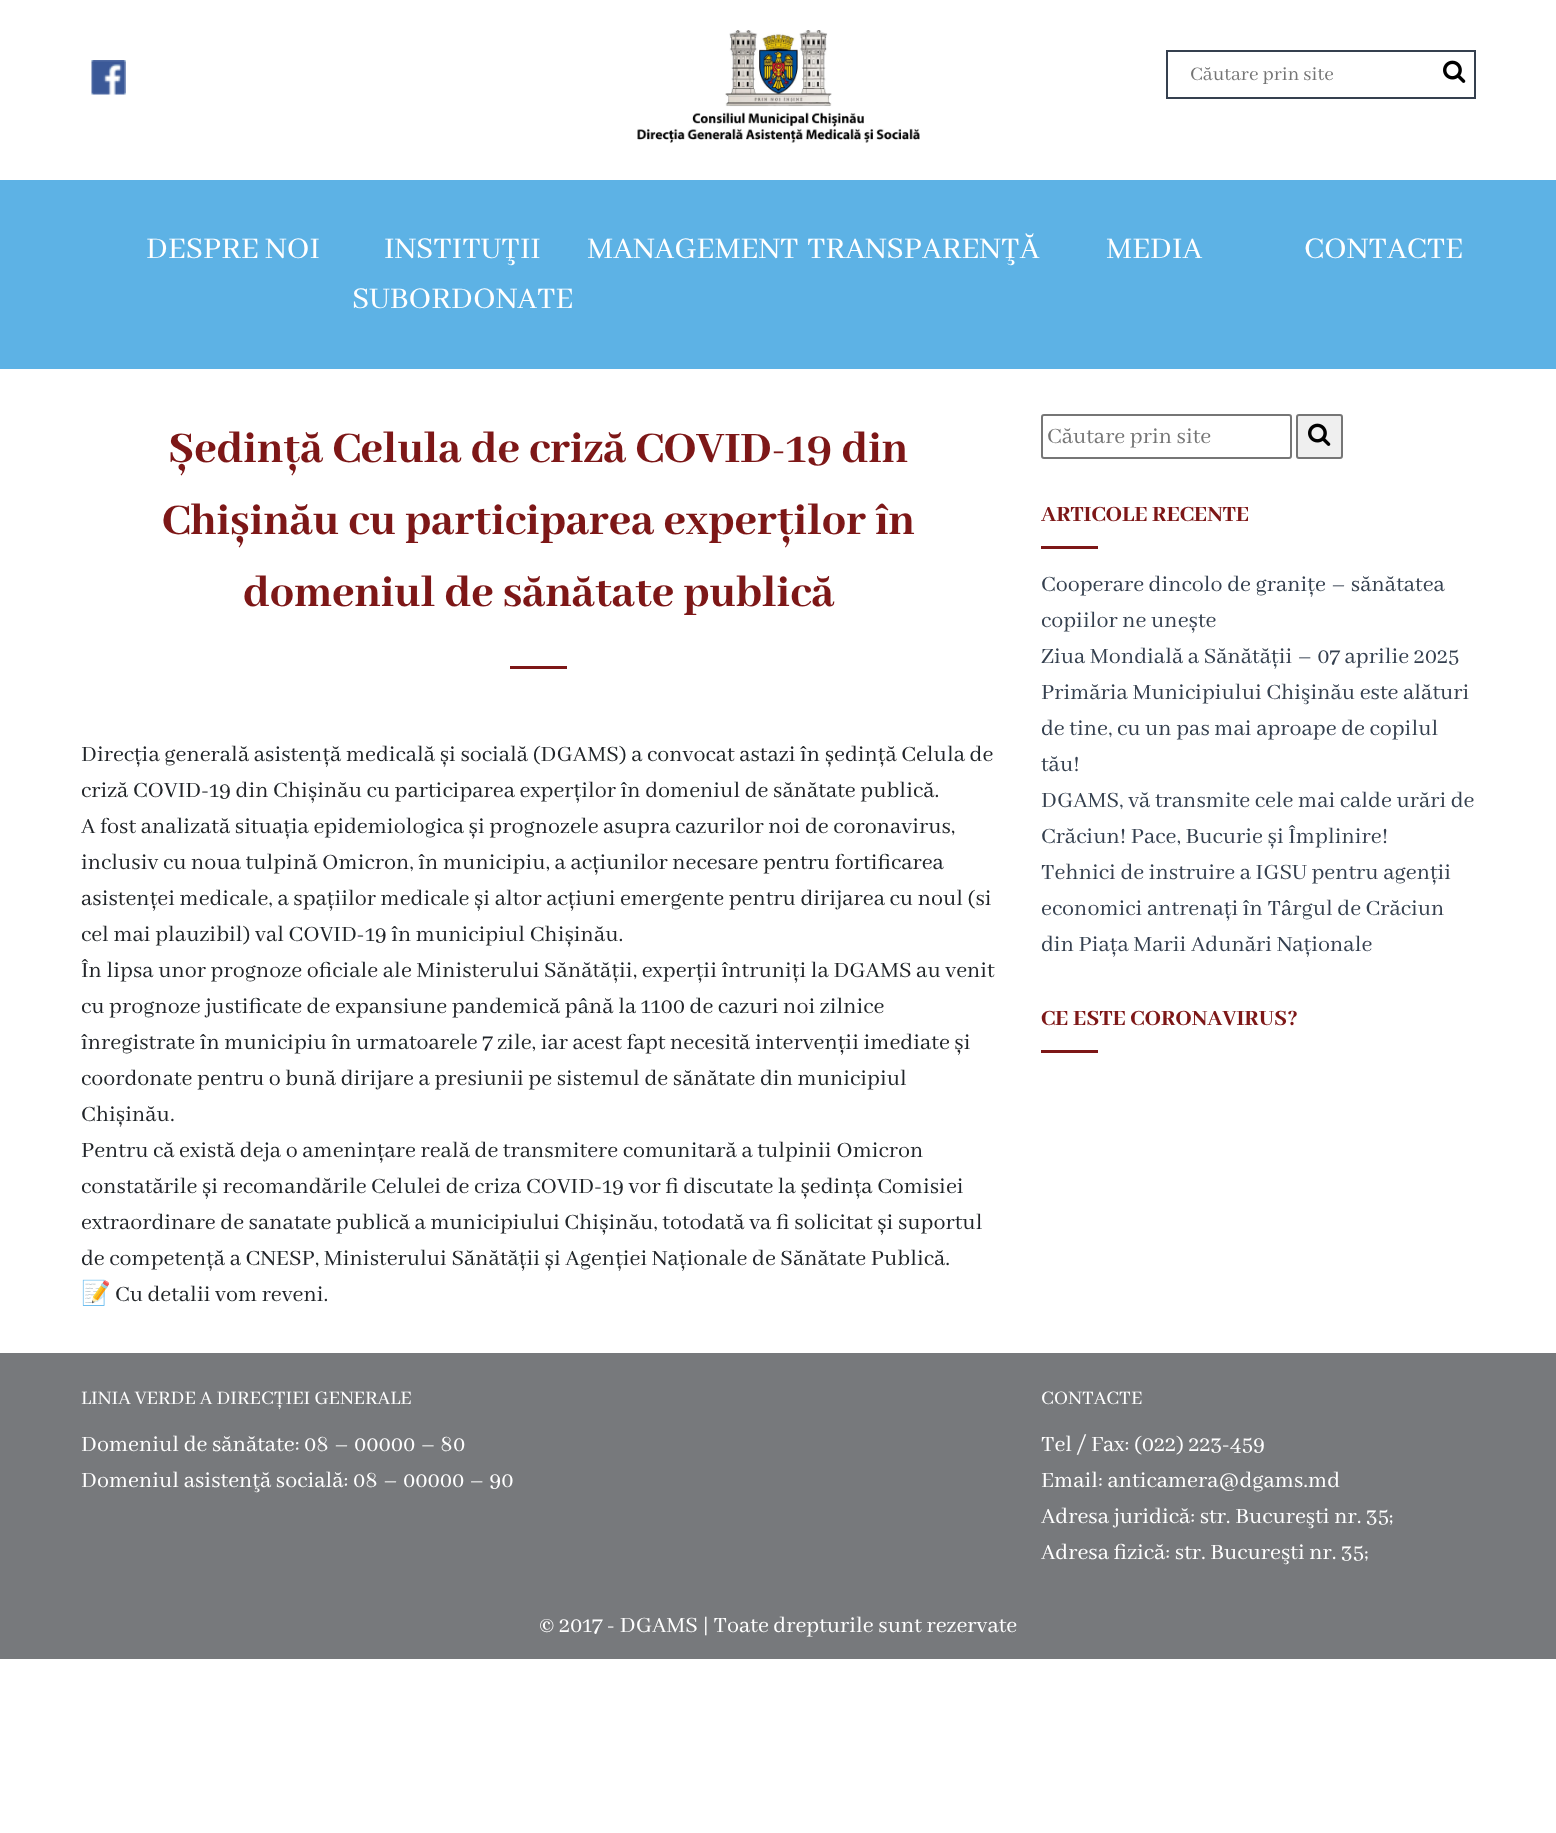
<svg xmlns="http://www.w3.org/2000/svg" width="1556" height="1833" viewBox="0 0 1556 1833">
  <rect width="100%" height="100%" fill="rgb(255,255,255)"/>
  <image x="91" y="60" width="35" height="35" href="pic1.png"/>
  <image x="637" y="30" width="283" height="113" href="pic2.png"/>
  <rect x="1167" y="51" width="308" height="47" fill="none" stroke="rgb(53,64,79)" stroke-width="2"/>
  <text x="1190" y="80" font-family="Abhaya Libre" font-size="21" fill="rgb(117,117,117)">Căutare prin site</text>
  <image x="1443" y="60" width="23" height="23" href="pic3.png"/>
  <rect x="0" y="180" width="1556" height="189" fill="rgb(93,178,229)"/>
  <g font-family="Abhaya Libre" font-size="33" fill="rgb(255,255,255)">
    <text x="146" y="258">DESPRE NOI</text>
    <text x="384" y="258">INSTITUŢII</text>
    <text x="352" y="308">SUBORDONATE</text>
    <text x="587" y="258">MANAGEMENT</text>
    <text x="807" y="258">TRANSPARENŢĂ</text>
    <text x="1106" y="258">MEDIA</text>
    <text x="1304" y="258">CONTACTE</text>
  </g>
  <g font-family="Abhaya Libre ExtraBold" font-size="48" font-weight="800" fill="rgb(125,23,23)">
    <text x="168" y="462">Ședință Celula de criză COVID-19 din</text>
    <text x="162" y="534">Chișinău cu participarea experților în</text>
    <text x="243" y="606">domeniul de sănătate publică</text>
  </g>
  <rect x="510" y="666" width="57" height="3" fill="rgb(125,23,23)"/>
  <g font-family="Abhaya Libre" font-size="24" fill="rgb(33,37,41)">
    <text>
      <tspan x="81" y="761">Direcția generală asistență medicală și socială (DGAMS) a convocat astazi în ședință Celula de</tspan>
      <tspan x="81" y="797">criză COVID-19 din Chișinău cu participarea experților în domeniul de sănătate publică.</tspan>
      <tspan x="81" y="833">A fost analizată situația epidemiologica și prognozele asupra cazurilor noi de coronavirus,</tspan>
      <tspan x="81" y="869">inclusiv cu noua tulpină Omicron, în municipiu, a acțiunilor necesare pentru fortificarea</tspan>
      <tspan x="81" y="905">asistenței medicale, a spațiilor medicale și altor acțiuni emergente pentru dirijarea cu noul (si</tspan>
      <tspan x="81" y="941">cel mai plauzibil) val COVID-19 în municipiul Chișinău.</tspan>
      <tspan x="81" y="977">În lipsa unor prognoze oficiale ale Ministerului Sănătății, experții întruniți la DGAMS au venit</tspan>
      <tspan x="81" y="1013">cu prognoze justificate de expansiune pandemică până la 1100 de cazuri noi zilnice</tspan>
      <tspan x="81" y="1049">înregistrate în municipiu în urmatoarele 7 zile, iar acest fapt necesită intervenții imediate și</tspan>
      <tspan x="81" y="1085">coordonate pentru o bună dirijare a presiunii pe sistemul de sănătate din municipiul</tspan>
      <tspan x="81" y="1121">Chișinău.</tspan>
      <tspan x="81" y="1157">Pentru că există deja o amenințare reală de transmitere comunitară a tulpinii Omicron</tspan>
      <tspan x="81" y="1193">constatările și recomandările Celulei de criza COVID-19 vor fi discutate la ședința Comisiei</tspan>
      <tspan x="81" y="1229">extraordinare de sanatate publică a municipiului Chișinău, totodată va fi solicitat și suportul</tspan>
      <tspan x="81" y="1265">de competență a CNESP, Ministerului Sănătății și Agenției Naționale de Sănătate Publică.</tspan>
    </text>
  </g>
  <text x="81" y="1301" font-family="Noto Color Emoji" font-size="24" fill="rgb(33,37,41)">📝</text>
  <text x="115" y="1301" font-family="Abhaya Libre" font-size="24" fill="rgb(33,37,41)">Cu detalii vom reveni.</text>
  <rect x="1042" y="415" width="249" height="43" rx="2" fill="none" stroke="rgb(118,118,118)" stroke-width="2"/>
  <text x="1047" y="443" font-family="Abhaya Libre" font-size="24" fill="rgb(117,117,117)">Căutare prin site</text>
  <rect x="1297" y="415" width="45" height="43" rx="2" fill="rgb(239,239,239)" stroke="rgb(118,118,118)" stroke-width="2"/>
  <image x="1308" y="423" width="23" height="23" href="pic4.png"/>
  <text x="1041" y="521" font-family="Abhaya Libre ExtraBold" font-size="24" font-weight="800" fill="rgb(125,23,23)">ARTICOLE RECENTE</text>
  <rect x="1041" y="546" width="57" height="3" fill="rgb(125,23,23)"/>
  <g font-family="Abhaya Libre" font-size="24" fill="rgb(53,64,79)">
    <text>
      <tspan x="1041" y="591">Cooperare dincolo de granițe – sănătatea</tspan>
      <tspan x="1041" y="627">copiilor ne unește</tspan>
      <tspan x="1041" y="663">Ziua Mondială a Sănătății – 07 aprilie 2025</tspan>
      <tspan x="1041" y="699">Primăria Municipiului Chişinău este alături</tspan>
      <tspan x="1041" y="735">de tine, cu un pas mai aproape de copilul</tspan>
      <tspan x="1041" y="771">tău!</tspan>
      <tspan x="1041" y="807">DGAMS, vă transmite cele mai calde urări de</tspan>
      <tspan x="1041" y="843">Crăciun! Pace, Bucurie și Împlinire!</tspan>
      <tspan x="1041" y="879">Tehnici de instruire a IGSU pentru agenții</tspan>
      <tspan x="1041" y="915">economici antrenați în Târgul de Crăciun</tspan>
      <tspan x="1041" y="951">din Piața Marii Adunări Naționale</tspan>
    </text>
  </g>
  <text x="1041" y="1025" font-family="Abhaya Libre ExtraBold" font-size="24" font-weight="800" fill="rgb(125,23,23)">CE ESTE CORONAVIRUS?</text>
  <rect x="1041" y="1050" width="57" height="3" fill="rgb(125,23,23)"/>
  <rect x="0" y="1353" width="1556" height="306" fill="rgb(119,121,124)"/>
  <text x="81" y="1404" font-family="Abhaya Libre" font-size="21" fill="rgb(255,255,255)">LINIA VERDE A DIRECȚIEI GENERALE</text>
  <g font-family="Abhaya Libre" font-size="24" fill="rgb(255,255,255)">
    <text>
      <tspan x="81" y="1451">Domeniul de sănătate: 08 – 00000 – 80</tspan>
      <tspan x="81" y="1487">Domeniul asistenţă socială: 08 – 00000 – 90</tspan>
    </text>
  </g>
  <text x="1041" y="1404" font-family="Abhaya Libre" font-size="21" fill="rgb(255,255,255)">CONTACTE</text>
  <g font-family="Abhaya Libre" font-size="24" fill="rgb(255,255,255)">
    <text>
      <tspan x="1041" y="1451">Tel / Fax: (022) 223-459</tspan>
      <tspan x="1041" y="1487">Email: anticamera@dgams.md</tspan>
      <tspan x="1041" y="1523">Adresa juridică: str. Bucureşti nr. 35;</tspan>
      <tspan x="1041" y="1559">Adresa fizică: str. Bucureşti nr. 35;</tspan>
    </text>
    <text x="539" y="1632">© 2017 - DGAMS | Toate drepturile sunt rezervate</text>
  </g>
</svg>
